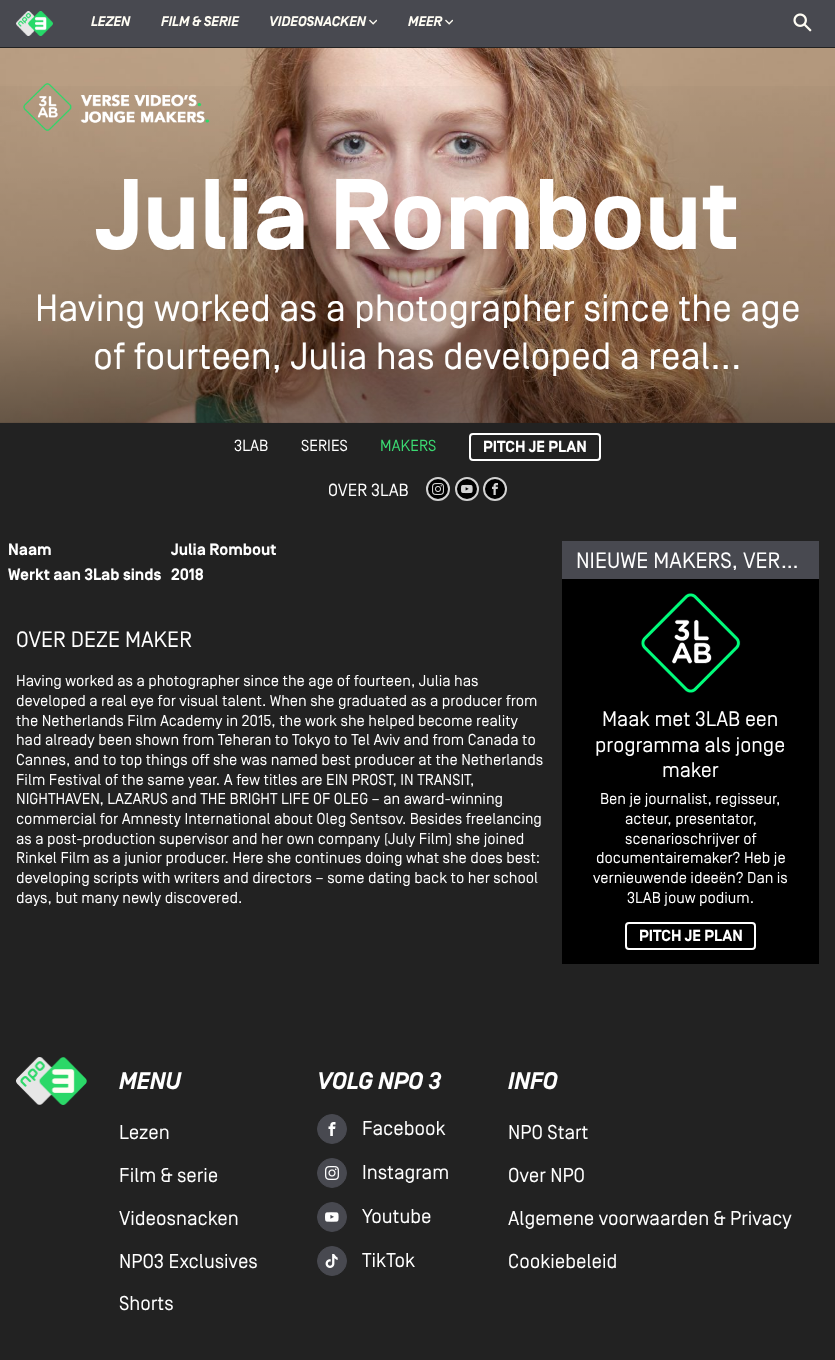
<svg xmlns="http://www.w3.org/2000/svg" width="835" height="1360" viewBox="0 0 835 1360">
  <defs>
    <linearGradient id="g1" gradientUnits="userSpaceOnUse" x1="418" y1="48" x2="418" y2="423"><stop offset="0" stop-color="rgb(0,0,0)" stop-opacity="0"/><stop offset="0.7" stop-color="rgb(0,0,0)" stop-opacity="0.15"/><stop offset="1" stop-color="rgb(0,0,0)" stop-opacity="0.4"/></linearGradient>
  </defs>
  <rect width="100%" height="100%" fill="rgb(34,34,34)"/>
  <rect x="0" y="0" width="835" height="47" fill="rgb(72,73,80)"/>
  <image x="16" y="11" width="37" height="25" href="pic1.png"/>
  <g font-family="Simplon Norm" font-size="14" font-weight="bold" font-style="italic" fill="rgb(255,253,244)">
    <text x="91" y="26">LEZEN</text>
    <text x="161" y="26">FILM &amp; SERIE</text>
    <text x="269" y="26">VIDEOSNACKEN</text>
  </g>
  <image x="369" y="19" width="8" height="6" href="pic2.png"/>
  <text x="408" y="26" font-family="Simplon Norm" font-size="14" font-weight="bold" font-style="italic" fill="rgb(255,253,244)">MEER</text>
  <image x="445" y="19" width="8" height="6" href="pic2.png"/>
  <image x="793" y="13" width="19" height="19" href="pic3.png"/>
  <image x="0" y="48" width="835" height="375" href="pic4.png"/>
  <rect x="0" y="86" width="835" height="337" fill="url(#g1)"/>
  <image x="23" y="83" width="187" height="48" href="pic5.png"/>
  <text x="96" y="249" font-family="Simplon Norm" font-size="100" font-weight="bold" fill="rgb(255,255,255)">Julia Rombout</text>
  <g font-family="Simplon Norm" font-size="38" fill="rgb(255,255,255)">
    <text x="35" y="321">Having worked as a photographer since the age</text>
    <text x="93" y="369">of fourteen, Julia has developed a real...</text>
  </g>
  <g font-family="Simplon Norm" font-size="16" fill="rgb(255,255,255)">
    <text x="234" y="451">3LAB</text>
    <text x="301" y="451">SERIES</text>
  </g>
  <text x="380" y="451" font-family="Simplon Norm" font-size="16" fill="rgb(59,217,114)">MAKERS</text>
  <rect x="470" y="434" width="130" height="26" rx="3" fill="none" stroke="rgb(255,255,255)" stroke-width="2"/>
  <text x="483" y="452" font-family="Simplon Norm" font-size="16" font-weight="bold" fill="rgb(255,255,255)">PITCH JE PLAN</text>
  <text x="328" y="496" font-family="Simplon Norm" font-size="17.5" fill="rgb(255,255,255)">OVER 3LAB</text>
  <circle cx="438" cy="489" r="11" fill="rgb(0,0,0)" stroke="rgb(210,210,210)" stroke-width="2"/>
  <image x="432" y="483" width="12" height="12" href="pic6.png"/>
  <circle cx="467" cy="489" r="11" fill="rgb(0,0,0)" stroke="rgb(210,210,210)" stroke-width="2"/>
  <image x="461" y="484" width="12" height="10" href="pic7.png"/>
  <circle cx="495" cy="489" r="11" fill="rgb(0,0,0)" stroke="rgb(210,210,210)" stroke-width="2"/>
  <image x="492" y="483" width="6" height="12" href="pic8.png"/>
  <g font-family="Simplon Norm" font-size="16.4" font-weight="bold" fill="rgb(255,255,255)">
    <text>
      <tspan x="8" y="555">Naam</tspan>
      <tspan x="8" y="580">Werkt aan 3Lab sinds</tspan>
    </text>
    <text>
      <tspan x="171" y="555">Julia Rombout</tspan>
      <tspan x="171" y="580">2018</tspan>
    </text>
  </g>
  <text x="16" y="647" font-family="Simplon Norm" font-size="22.25" fill="rgb(255,255,255)">OVER DEZE MAKER</text>
  <g font-family="Simplon Norm" font-size="15.75" fill="rgb(255,255,255)">
    <text>
      <tspan x="16" y="686">Having worked as a photographer since the age of fourteen, Julia has</tspan>
      <tspan x="16" y="706">developed a real eye for visual talent. When she graduated as a producer from</tspan>
      <tspan x="16" y="726">the Netherlands Film Academy in 2015, the work she helped become reality</tspan>
      <tspan x="16" y="745">had already been shown from Teheran to Tokyo to Tel Aviv and from Canada to</tspan>
      <tspan x="16" y="765">Cannes, and to top things off she was named best producer at the Netherlands</tspan>
      <tspan x="16" y="785">Film Festival of the same year. A few titles are EIN PROST, IN TRANSIT,</tspan>
      <tspan x="16" y="804">NIGHTHAVEN, LAZARUS and THE BRIGHT LIFE OF OLEG – an award-winning</tspan>
      <tspan x="16" y="824">commercial for Amnesty International about Oleg Sentsov. Besides freelancing</tspan>
      <tspan x="16" y="844">as a post-production supervisor and her own company (July Film) she joined</tspan>
      <tspan x="16" y="863">Rinkel Film as a junior producer. Here she continues doing what she does best:</tspan>
      <tspan x="16" y="883">developing scripts with writers and directors – some dating back to her school</tspan>
      <tspan x="16" y="903">days, but many newly discovered.</tspan>
    </text>
  </g>
  <rect x="562" y="541" width="257" height="38" fill="rgb(72,73,80)"/>
  <text x="576" y="568" font-family="Simplon Norm" font-size="22.25" fill="rgb(255,255,255)">NIEUWE MAKERS, VER…</text>
  <rect x="562" y="579" width="257" height="385" fill="rgb(0,0,0)"/>
  <image x="641" y="593" width="100" height="100" href="pic9.png"/>
  <g font-family="Simplon Norm" font-size="21" fill="rgb(255,255,255)">
    <text x="602" y="726">Maak met 3LAB een</text>
    <text x="595" y="752">programma als jonge</text>
    <text x="662" y="777">maker</text>
  </g>
  <g font-family="Simplon Norm" font-size="15.75" fill="rgb(255,255,255)">
    <text x="600" y="804">Ben je journalist, regisseur,</text>
    <text>
      <tspan x="625" y="824">acteur, presentator,</tspan>
      <tspan x="625" y="844">scenarioschrijver of</tspan>
    </text>
    <text x="596" y="863">documentairemaker? Heb je</text>
    <text x="593" y="883">vernieuwende ideeën? Dan is</text>
    <text x="627" y="903">3LAB jouw podium.</text>
  </g>
  <rect x="626" y="923" width="129" height="26" rx="3" fill="none" stroke="rgb(255,255,255)" stroke-width="2"/>
  <text x="639" y="941" font-family="Simplon Norm" font-size="16" font-weight="bold" fill="rgb(255,255,255)">PITCH JE PLAN</text>
  <image x="16" y="1057" width="71" height="48" href="pic10.png"/>
  <text x="119" y="1089" font-family="Simplon Norm" font-size="24" font-weight="bold" font-style="italic" fill="rgb(255,255,255)">MENU</text>
  <g font-family="Simplon Norm" font-size="20" fill="rgb(255,255,255)">
    <text x="119" y="1139">Lezen</text>
    <text x="119" y="1182">Film &amp; serie</text>
    <text x="119" y="1225">Videosnacken</text>
    <text x="119" y="1268">NPO3 Exclusives</text>
    <text x="119" y="1310">Shorts</text>
  </g>
  <text x="317" y="1089" font-family="Simplon Norm" font-size="24" font-weight="bold" font-style="italic" fill="rgb(255,255,255)">VOLG NPO 3</text>
  <circle cx="332" cy="1129" r="14.5" fill="rgb(72,73,80)" stroke="rgb(72,73,80)"/>
  <image x="328" y="1122" width="8" height="14" href="pic11.png"/>
  <text x="362" y="1135" font-family="Simplon Norm" font-size="20" fill="rgb(255,255,255)">Facebook</text>
  <circle cx="332" cy="1173" r="14.5" fill="rgb(72,73,80)" stroke="rgb(72,73,80)"/>
  <image x="325" y="1166" width="14" height="14" href="pic12.png"/>
  <text x="362" y="1179" font-family="Simplon Norm" font-size="20" fill="rgb(255,255,255)">Instagram</text>
  <circle cx="332" cy="1217" r="14.5" fill="rgb(72,73,80)" stroke="rgb(72,73,80)"/>
  <image x="325" y="1212" width="14" height="10" href="pic13.png"/>
  <text x="362" y="1223" font-family="Simplon Norm" font-size="20" fill="rgb(255,255,255)">Youtube</text>
  <circle cx="332" cy="1261" r="14.5" fill="rgb(72,73,80)" stroke="rgb(72,73,80)"/>
  <image x="325" y="1254" width="13" height="14" href="pic14.png"/>
  <text x="362" y="1267" font-family="Simplon Norm" font-size="20" fill="rgb(255,255,255)">TikTok</text>
  <text x="508" y="1089" font-family="Simplon Norm" font-size="24" font-weight="bold" font-style="italic" fill="rgb(255,255,255)">INFO</text>
  <g font-family="Simplon Norm" font-size="20" fill="rgb(255,255,255)">
    <text x="508" y="1139">NPO Start</text>
    <text x="508" y="1182">Over NPO</text>
    <text x="508" y="1225">Algemene voorwaarden &amp; Privacy</text>
    <text x="508" y="1268">Cookiebeleid</text>
  </g>
</svg>
